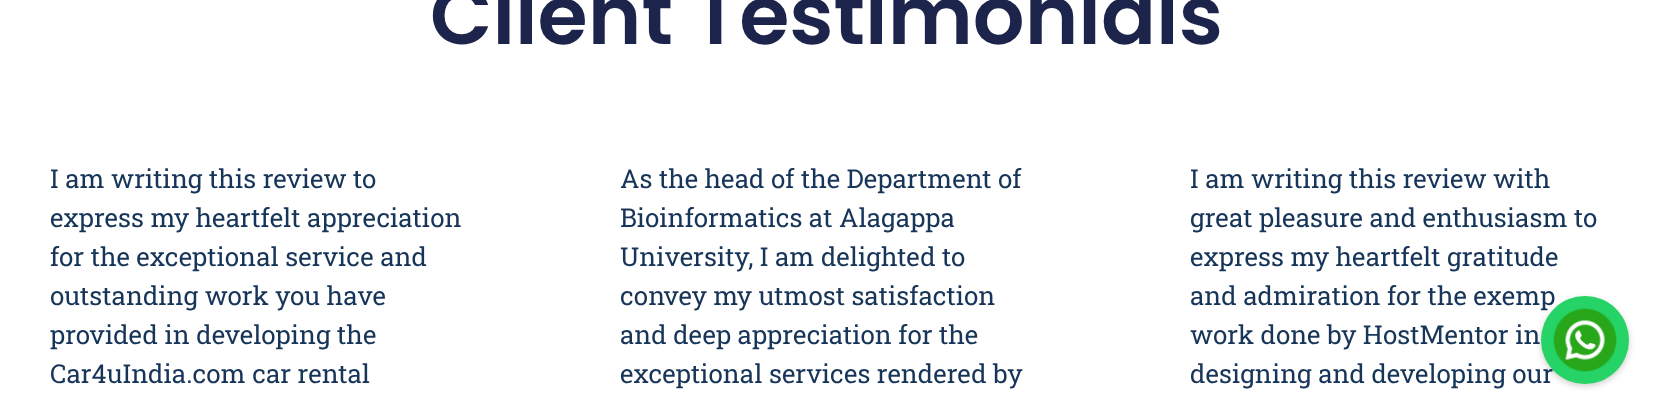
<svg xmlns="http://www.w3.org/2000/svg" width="1653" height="408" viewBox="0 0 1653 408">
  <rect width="100%" height="100%" fill="rgb(255,255,255)"/>
  <text x="430" y="44" font-family="Poppins" font-size="81.25" font-weight="600" fill="rgb(28,36,75)">Client Testimonials</text>
  <g font-family="Roboto Slab" font-size="26" fill="rgb(23,53,89)">
    <text>
      <tspan x="50" y="188">I am writing this review to</tspan>
      <tspan x="50" y="227">express my heartfelt appreciation</tspan>
      <tspan x="50" y="266">for the exceptional service and</tspan>
      <tspan x="50" y="305">outstanding work you have</tspan>
      <tspan x="50" y="344">provided in developing the</tspan>
      <tspan x="50" y="383">Car4uIndia.com car rental</tspan>
    </text>
    <text>
      <tspan x="620" y="188">As the head of the Department of</tspan>
      <tspan x="620" y="227">Bioinformatics at Alagappa</tspan>
      <tspan x="620" y="266">University, I am delighted to</tspan>
      <tspan x="620" y="305">convey my utmost satisfaction</tspan>
      <tspan x="620" y="344">and deep appreciation for the</tspan>
      <tspan x="620" y="383">exceptional services rendered by</tspan>
    </text>
    <text>
      <tspan x="1190" y="188">I am writing this review with</tspan>
      <tspan x="1190" y="227">great pleasure and enthusiasm to</tspan>
      <tspan x="1190" y="266">express my heartfelt gratitude</tspan>
      <tspan x="1190" y="305">and admiration for the exemp</tspan>
      <tspan x="1190" y="344">work done by HostMentor in</tspan>
      <tspan x="1190" y="383">designing and developing our</tspan>
    </text>
  </g>
  <rect x="1541" y="299" width="88" height="87" rx="43.5" fill="rgba(0,0,0,0.2)" filter="blur(3px)"/>
  <circle cx="1585" cy="340" r="44" fill="rgb(37,211,102)"/>
  <image x="1553" y="308" width="64" height="64" href="pic1.png"/>
</svg>
